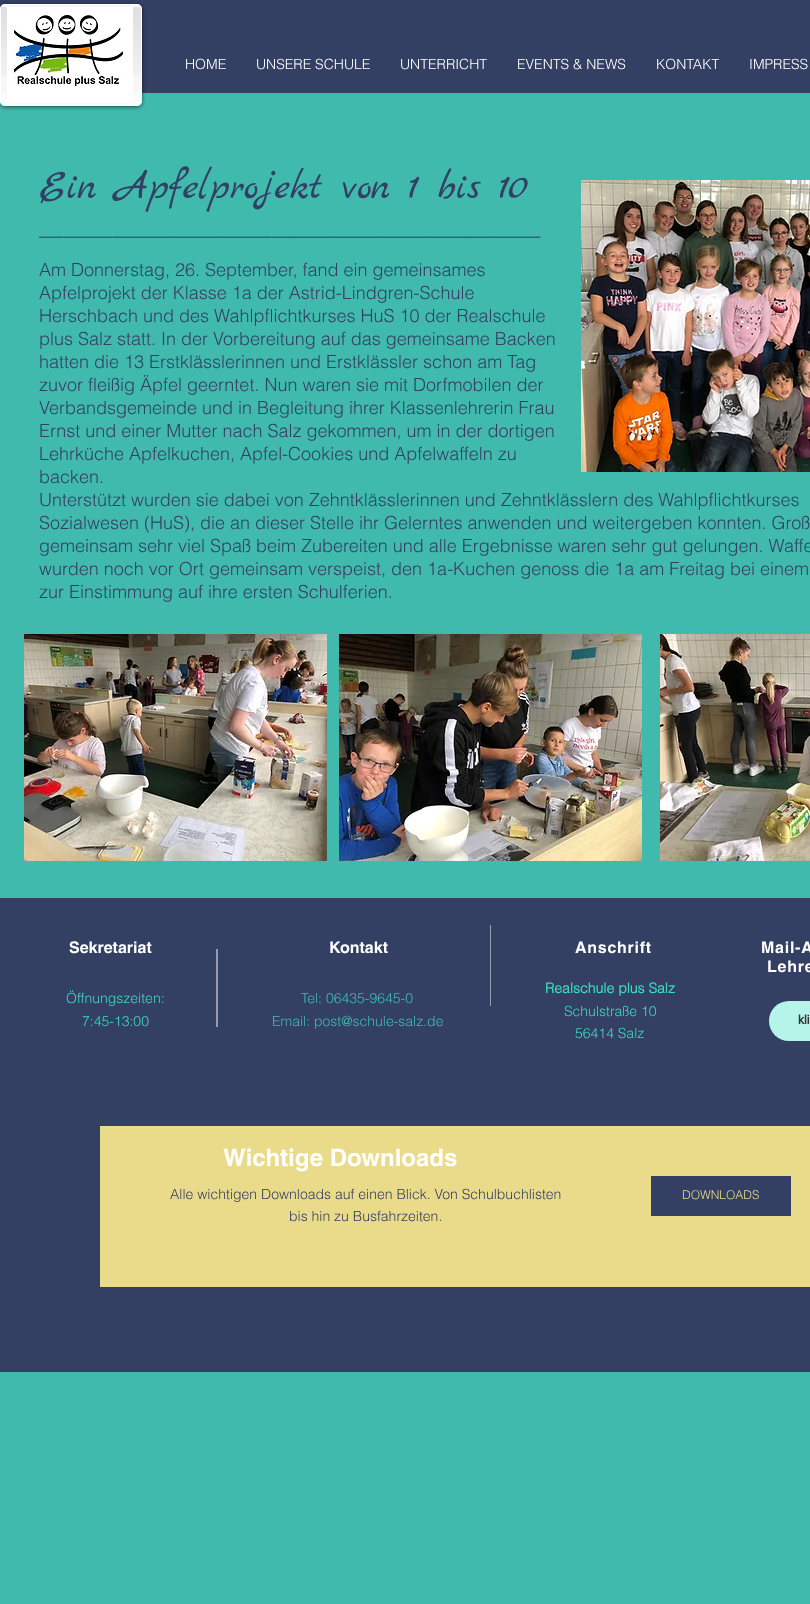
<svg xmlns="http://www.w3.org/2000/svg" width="810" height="1604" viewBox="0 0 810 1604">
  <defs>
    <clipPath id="clip1"><path d="M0 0H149V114H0ZM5 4H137C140 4 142 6 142 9V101C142 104 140 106 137 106H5C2 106 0 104 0 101V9C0 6 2 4 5 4Z" clip-rule="evenodd"/></clipPath>
  </defs>
  <rect width="100%" height="100%" fill="rgb(65,186,174)"/>
  <rect x="0" y="0" width="810" height="93" fill="rgb(52,63,100)"/>
  <g clip-path="url(#clip1)">
    <rect x="0" y="5" width="142" height="102" rx="5" fill="rgba(0,0,0,0.6)" filter="blur(2px)"/>
  </g>
  <rect x="0" y="4" width="142" height="102" rx="5" fill="rgba(255,255,255,0.96)"/>
  <image x="0" y="7" width="142" height="69" href="pic1.png"/>
  <rect x="0.5" y="4.5" width="141" height="101" rx="4.5" fill="none" stroke="rgb(255,255,255)"/>
  <image x="7" y="7" width="126" height="95" href="pic2.png"/>
  <g font-family="helvetica" font-size="14" font-weight="300" fill="rgb(255,255,255)">
    <text x="185" y="69">HOME</text>
    <text x="256" y="69">UNSERE SCHULE</text>
    <text x="400" y="69">UNTERRICHT</text>
    <text x="517" y="69">EVENTS &amp; NEWS</text>
    <text x="656" y="69">KONTAKT</text>
    <text x="749" y="69">IMPRESS</text>
  </g>
  <text x="39" y="198" font-family="Marck Script" font-size="41" fill="rgb(52,63,100)">Ein Apfelprojekt von 1 bis 10</text>
  <text x="39" y="235" font-family="helvetica" font-size="22" font-weight="bold" fill="rgb(52,63,100)">_________________________________________</text>
  <g font-family="helvetica" font-size="18" font-weight="300" fill="rgb(52,63,100)">
    <text>
      <tspan x="39" y="276">Am Donnerstag, 26. September, fand ein gemeinsames</tspan>
      <tspan x="39" y="299">Apfelprojekt der Klasse 1a der Astrid-Lindgren-Schule</tspan>
      <tspan x="39" y="322">Herschbach und des Wahlpflichtkurses HuS 10 der Realschule</tspan>
      <tspan x="39" y="345">plus Salz statt. In der Vorbereitung auf das gemeinsame Backen</tspan>
      <tspan x="39" y="368">hatten die 13 Erstklässlerinnen und Erstklässler schon am Tag</tspan>
      <tspan x="39" y="391">zuvor fleißig Äpfel geerntet. Nun waren sie mit Dorfmobilen der</tspan>
      <tspan x="39" y="414">Verbandsgemeinde und in Begleitung ihrer Klassenlehrerin Frau</tspan>
      <tspan x="39" y="437">Ernst und einer Mutter nach Salz gekommen, um in der dortigen</tspan>
      <tspan x="39" y="460">Lehrküche Apfelkuchen, Apfel-Cookies und Apfelwaffeln zu</tspan>
      <tspan x="39" y="483">backen.</tspan>
    </text>
  </g>
  <image x="581" y="180" width="229" height="292" href="pic3.png"/>
  <g font-family="helvetica" font-size="18" font-weight="300" fill="rgb(52,63,100)">
    <text>
      <tspan x="39" y="506">Unterstützt wurden sie dabei von Zehntklässlerinnen und Zehntklässlern des Wahlpflichtkurses</tspan>
      <tspan x="39" y="529">Sozialwesen (HuS), die an dieser Stelle ihr Gelerntes anwenden und weitergeben konnten. Groß</tspan>
      <tspan x="39" y="552">gemeinsam sehr viel Spaß beim Zubereiten und alle Ergebnisse waren sehr gut gelungen. Waffe</tspan>
      <tspan x="39" y="575">wurden noch vor Ort gemeinsam verspeist, den 1a-Kuchen genoss die 1a am Freitag bei einem</tspan>
      <tspan x="39" y="598">zur Einstimmung auf ihre ersten Schulferien.</tspan>
    </text>
  </g>
  <image x="24" y="634" width="303" height="227" href="pic4.png"/>
  <image x="339" y="634" width="303" height="227" href="pic5.png"/>
  <image x="660" y="634" width="150" height="227" href="pic6.png"/>
  <rect x="0" y="898" width="810" height="474" fill="rgb(52,63,100)"/>
  <text x="69" y="953" font-family="helvetica" font-size="16" font-weight="bold" fill="rgb(255,255,255)">Sekretariat</text>
  <rect x="216" y="949" width="2" height="78" fill="rgb(149,156,178)"/>
  <text x="329" y="953" font-family="helvetica" font-size="16" font-weight="bold" fill="rgb(255,255,255)">Kontakt</text>
  <rect x="490" y="925" width="1" height="81" fill="rgb(149,156,178)"/>
  <g font-family="helvetica" font-size="16" font-weight="bold" letter-spacing="0.75" fill="rgb(255,255,255)">
    <text x="575" y="953">Anschrift</text>
    <text x="761" y="953">Mail-A</text>
    <text x="767" y="972">Lehre</text>
  </g>
  <g font-family="helvetica" font-size="14" font-weight="300" fill="rgb(61,217,186)">
    <text x="66" y="1003">Öffnungszeiten:</text>
    <text x="82" y="1026">7:45-13:00</text>
  </g>
  <g font-family="helvetica" font-size="14" font-weight="300" fill="rgb(65,186,174)">
    <text x="301" y="1003">Tel: 06435-9645-0</text>
    <text x="272" y="1026">Email: post@schule-salz.de</text>
  </g>
  <text x="545" y="993" font-family="'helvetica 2'" font-size="14" font-weight="bold" fill="rgb(61,217,186)">Realschule plus Salz</text>
  <g font-family="helvetica" font-size="14" font-weight="300" fill="rgb(61,217,186)">
    <text x="564" y="1016">Schulstraße 10</text>
    <text x="575" y="1038">56414 Salz</text>
  </g>
  <rect x="769" y="1001" width="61" height="40" rx="20" fill="rgb(182,243,232)"/>
  <text x="798" y="1024" font-family="tahoma" font-size="12" font-weight="bold" fill="rgb(50,50,50)">kli</text>
  <rect x="100" y="1126" width="710" height="161" fill="rgb(233,219,137)"/>
  <text x="223" y="1166" font-family="helvetica" font-size="24" font-weight="bold" fill="rgb(255,255,255)">Wichtige Downloads</text>
  <g font-family="helvetica" font-size="14" font-weight="300" fill="rgb(52,63,100)">
    <text x="170" y="1199">Alle wichtigen Downloads auf einen Blick. Von Schulbuchlisten</text>
    <text x="289" y="1221">bis hin zu Busfahrzeiten.</text>
  </g>
  <rect x="651" y="1176" width="140" height="40" fill="rgb(52,63,100)"/>
  <text x="682" y="1199" font-family="helvetica" font-size="12" font-weight="300" fill="rgb(233,219,137)">DOWNLOADS</text>
</svg>
